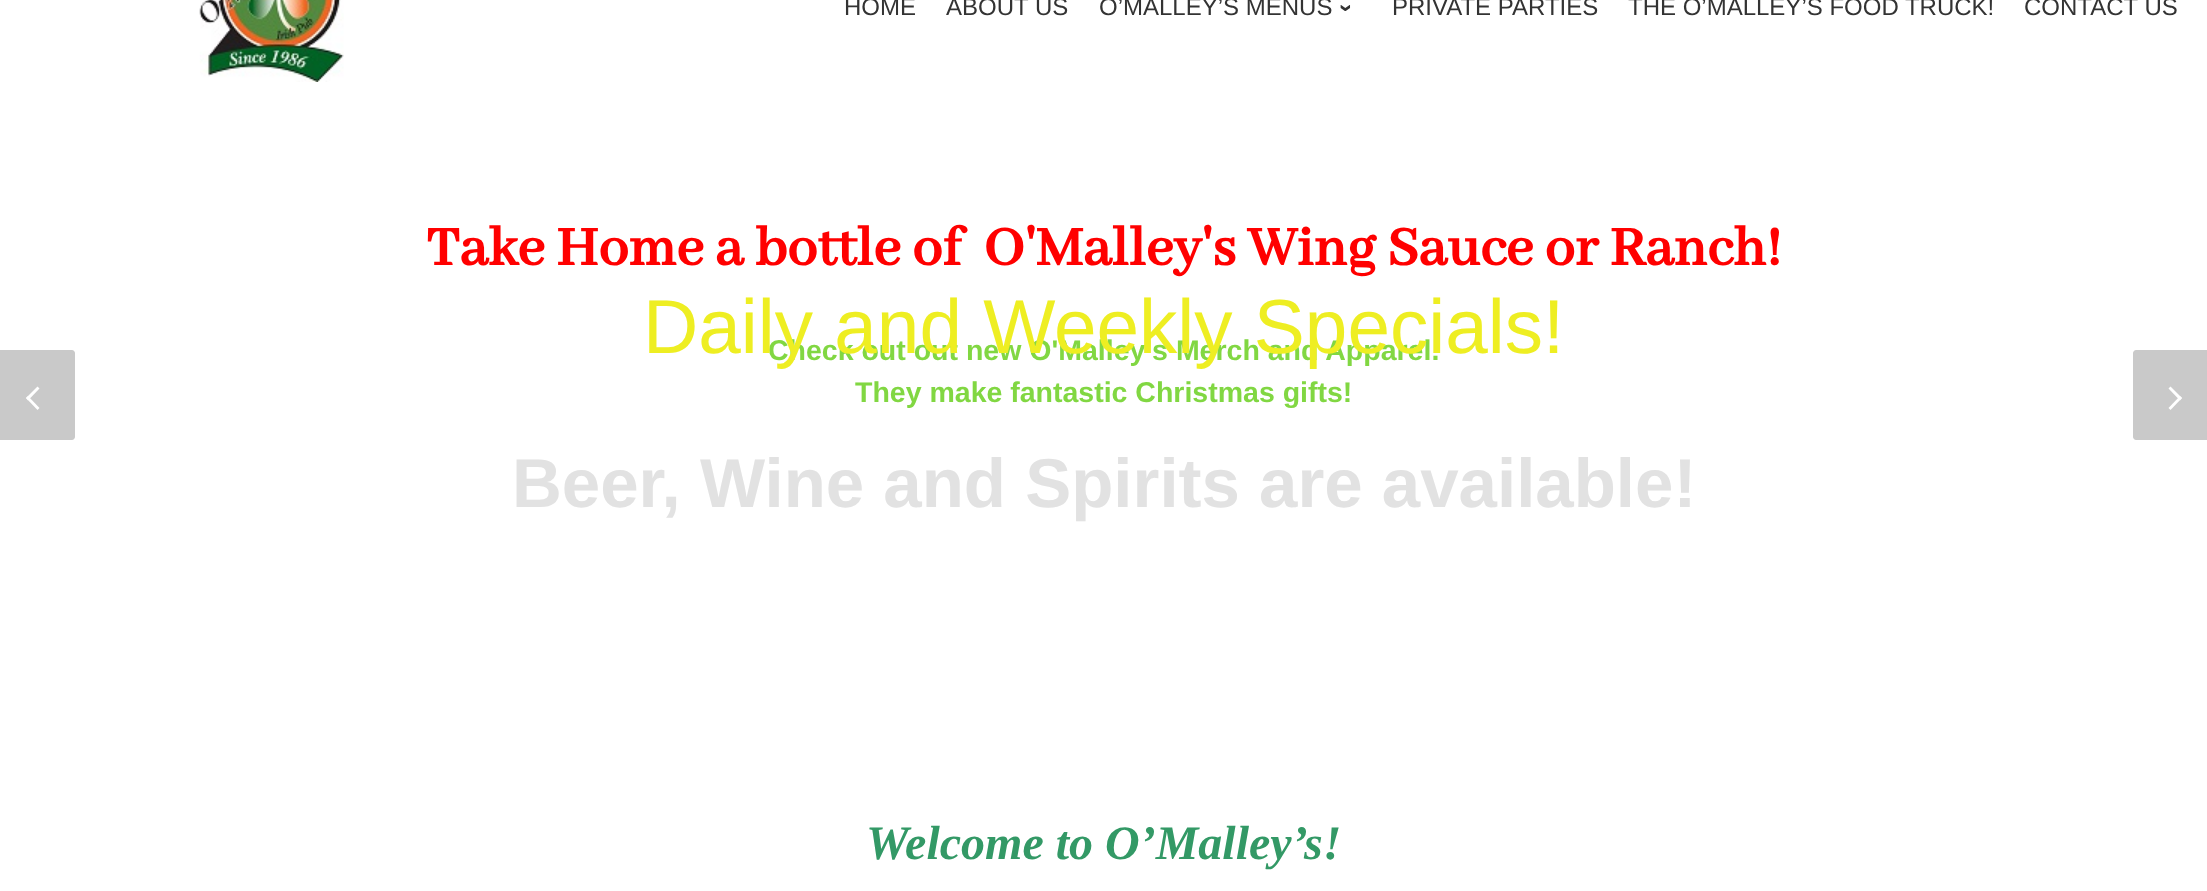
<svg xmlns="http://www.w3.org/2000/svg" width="2207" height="891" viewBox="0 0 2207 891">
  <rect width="100%" height="100%" fill="rgb(255,255,255)"/>
  <image x="199" y="0" width="145" height="82" href="pic1.png"/>
  <g font-family="Liberation Sans" font-size="24" fill="rgb(51,51,51)">
    <text x="844" y="15">HOME</text>
    <text x="946" y="15">ABOUT US</text>
    <text x="1099" y="15">O’MALLEY’S MENUS</text>
  </g>
  <text x="1339" y="4" transform="rotate(90 1339 4)" font-family="Liberation Sans" font-size="24" font-weight="bold" fill="rgb(51,51,51)">›</text>
  <g font-family="Liberation Sans" font-size="24" fill="rgb(51,51,51)">
    <text x="1392" y="15">PRIVATE PARTIES</text>
    <text x="1628" y="15">THE O’MALLEY’S FOOD TRUCK!</text>
    <text x="2024" y="15">CONTACT US</text>
  </g>
  <text x="426" y="265" font-family="Abhaya Libre Medium" font-size="60" font-weight="bold" fill="rgb(255,0,0)" xml:space="preserve">Take Home a bottle of  O'Malley's Wing Sauce or Ranch!</text>
  <text x="768" y="360" font-family="Liberation Sans" font-size="28.5" font-weight="bold" fill="rgb(129,215,66)">Check out out new O'Malley's Merch and Apparel.</text>
  <text x="643" y="353" font-family="Liberation Sans" font-size="76.5" fill="rgb(238,238,34)">Daily and Weekly Specials!</text>
  <text x="855" y="402" font-family="Liberation Sans" font-size="28.5" font-weight="bold" fill="rgb(129,215,66)">They make fantastic Christmas gifts!</text>
  <text x="512" y="507" font-family="Liberation Sans" font-size="69" font-weight="bold" fill="rgb(226,226,226)">Beer, Wine and Spirits are available!</text>
  <path d="M0 350H72C73.5 350 75 351.5 75 353V437C75 438.5 73.5 440 72 440H0Z" fill="rgb(201,201,201)"/>
  <path d="M39.5 408L37.5 410L26 398L28 396Z" fill="rgb(255,255,255)"/>
  <path d="M39.5 388.5L28 400.5L26 398L37.5 386.5Z" fill="rgb(255,255,255)"/>
  <path d="M2136 350H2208V440H2136C2134.5 440 2133 438.5 2133 437V353C2133 351.5 2134.5 350 2136 350Z" fill="rgb(201,201,201)"/>
  <path d="M2168.5 388.5L2170.5 386.5L2182 398L2180 400.5Z" fill="rgb(255,255,255)"/>
  <path d="M2168.5 408L2180 396L2182 398L2170.5 410Z" fill="rgb(255,255,255)"/>
  <text x="866" y="859" font-family="Liberation Serif" font-size="48" font-weight="bold" font-style="italic" fill="rgb(51,153,102)">Welcome to O’Malley’s!</text>
</svg>
